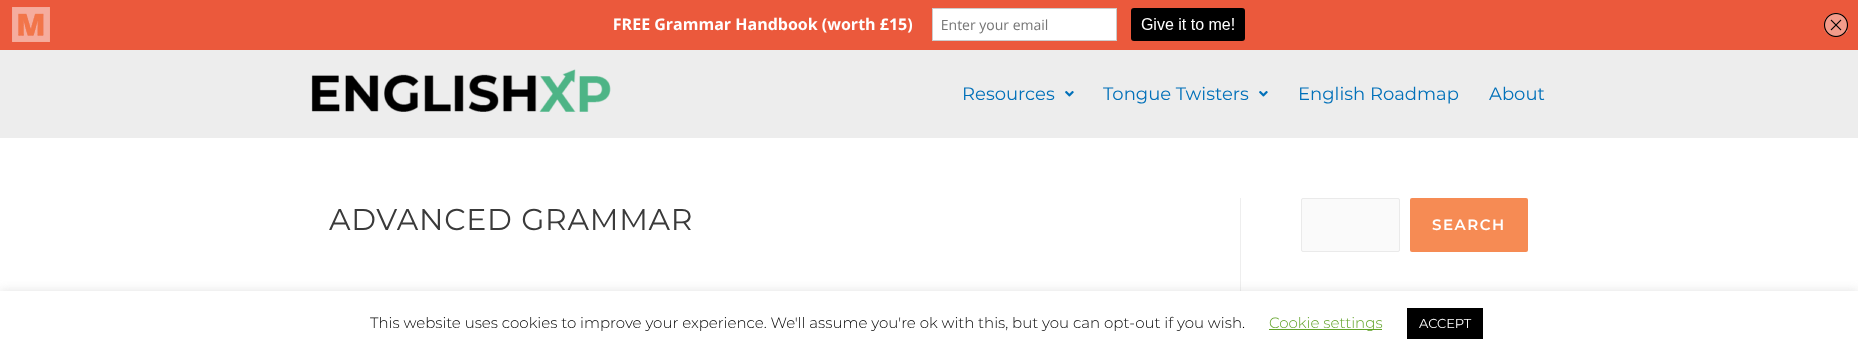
<svg xmlns="http://www.w3.org/2000/svg" width="1858" height="356" viewBox="0 0 1858 356">
  <rect width="100%" height="100%" fill="rgb(255,255,255)"/>
  <image x="0" y="0" width="1858" height="50" href="pic1.png"/>
  <rect x="0" y="50" width="1858" height="88" fill="rgb(237,237,237)"/>
  <image x="311" y="69" width="300" height="43" href="pic2.png"/>
  <text x="962" y="100" font-family="Montserrat" font-size="18" fill="rgb(1,112,185)">Resources</text>
  <image x="1065" y="91" width="9" height="6" href="pic3.png"/>
  <text x="1103" y="100" font-family="Montserrat" font-size="18" fill="rgb(1,112,185)">Tongue Twisters</text>
  <image x="1259" y="91" width="9" height="6" href="pic3.png"/>
  <g font-family="Montserrat" font-size="18" fill="rgb(1,112,185)">
    <text x="1298" y="100">English Roadmap</text>
    <text x="1489" y="100">About</text>
  </g>
  <text x="329" y="230" font-family="Montserrat" font-size="30" letter-spacing="0.75" fill="rgb(58,58,58)">ADVANCED GRAMMAR</text>
  <rect x="1240" y="198" width="1" height="93" fill="rgb(238,238,238)"/>
  <rect x="1301.5" y="198.5" width="98" height="53" rx="1.5" fill="rgb(250,250,250)" stroke="rgb(234,234,234)"/>
  <rect x="1410" y="198" width="118" height="54" rx="2" fill="rgb(246,139,84)"/>
  <text x="1432" y="230" font-family="Montserrat" font-size="15" font-weight="600" letter-spacing="1.5" fill="rgb(255,255,255)">SEARCH</text>
  <rect x="0" y="290" width="1858" height="65" fill="rgba(172,171,171,0.3)" filter="blur(5px)"/>
  <rect x="0" y="291" width="1858" height="65" fill="rgb(255,255,255)"/>
  <text x="370" y="328" font-family="Montserrat" font-size="15" font-weight="300" fill="rgb(0,0,0)">This website uses cookies to improve your experience. We'll assume you're ok with this, but you can opt-out if you wish.</text>
  <rect x="1269" y="329" width="113" height="1" fill="rgb(98,163,41)"/>
  <text x="1269" y="328" font-family="Montserrat" font-size="15" font-weight="300" fill="rgb(98,163,41)">Cookie settings</text>
  <rect x="1407" y="308" width="76" height="31" fill="rgb(0,0,0)"/>
  <text x="1419" y="328" font-family="Montserrat" font-size="13" fill="rgb(255,255,255)">ACCEPT</text>
</svg>
